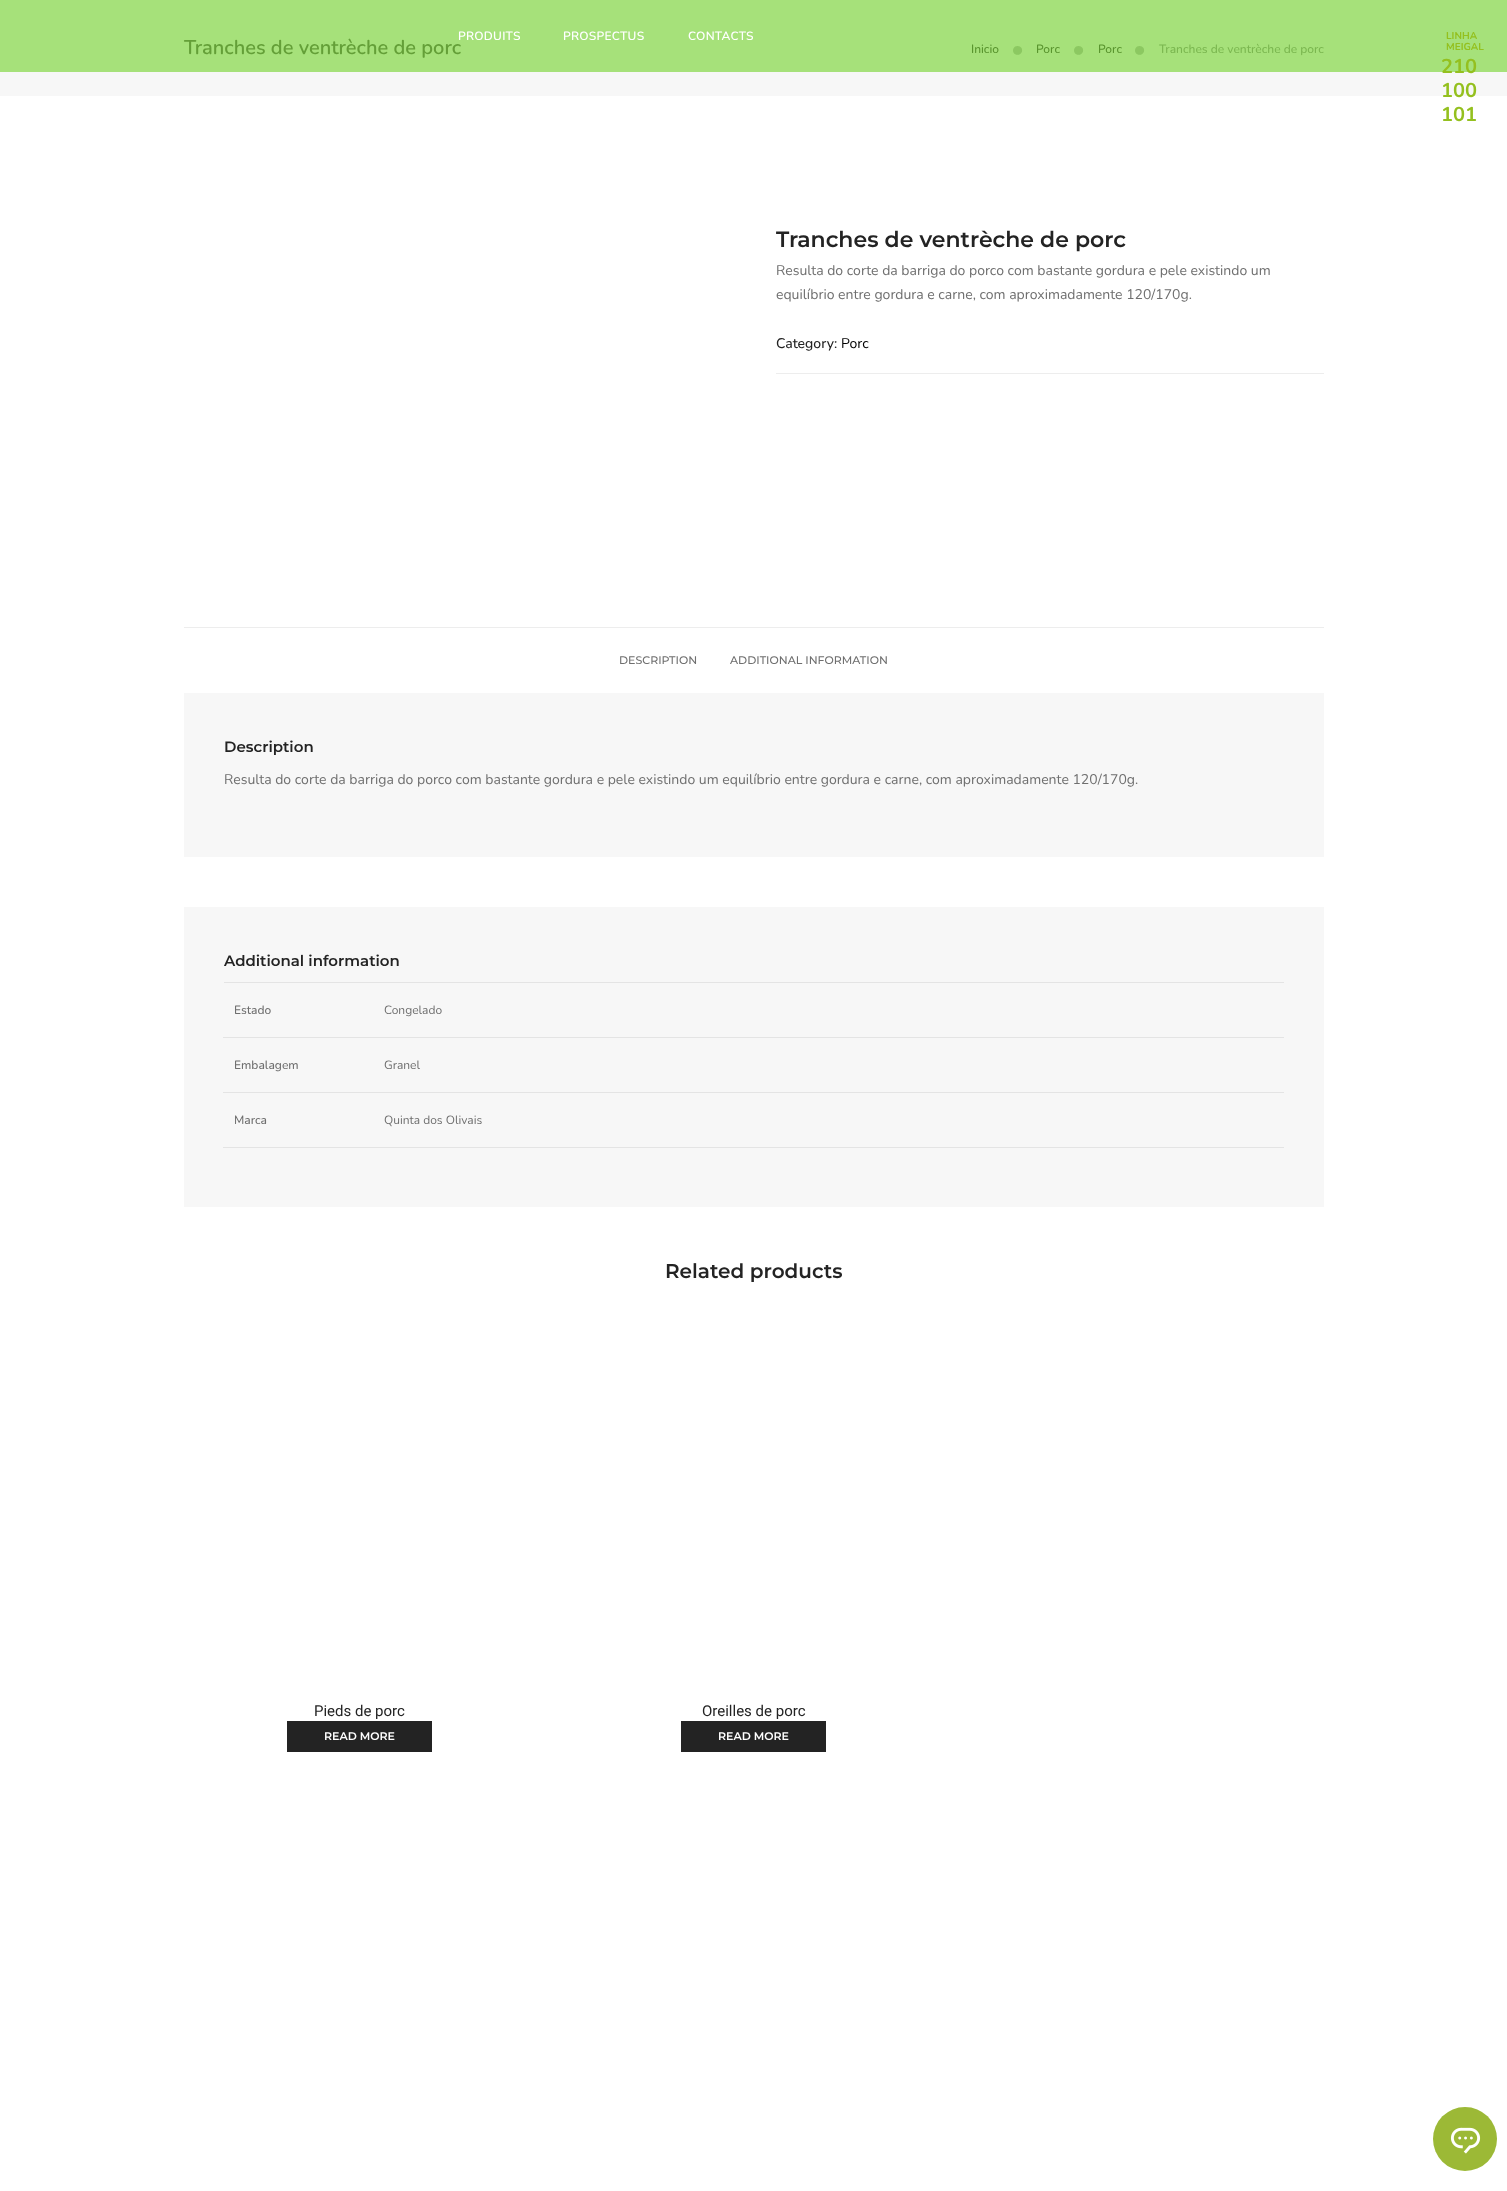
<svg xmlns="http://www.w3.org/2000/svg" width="1507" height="2191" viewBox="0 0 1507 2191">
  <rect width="100%" height="100%" fill="rgb(255,255,255)"/>
  <rect x="0" y="0" width="1507" height="72" fill="rgb(166,225,122)"/>
  <g font-family="Nunito" font-size="12" font-weight="600" letter-spacing="0.25" fill="rgb(255,255,255)">
    <text x="458" y="40">PRODUITS</text>
    <text x="563" y="40">PROSPECTUS</text>
    <text x="688" y="40">CONTACTS</text>
  </g>
  <g font-family="Nunito" font-size="10" font-weight="bold" fill="rgb(148,192,31)">
    <text>
      <tspan x="1446" y="39">LINHA</tspan>
      <tspan x="1446" y="50">MEIGAL</tspan>
    </text>
  </g>
  <rect x="0" y="72" width="1507" height="24" fill="rgb(247,247,247)"/>
  <g font-family="Nunito" font-size="20" font-weight="bold" fill="rgb(148,192,31)">
    <text>
      <tspan x="1441" y="73">210</tspan>
      <tspan x="1441" y="97">100</tspan>
      <tspan x="1441" y="121">101</tspan>
    </text>
  </g>
  <text x="184" y="54" font-family="Nunito" font-size="20" font-weight="600" fill="rgb(100,159,56)">Tranches de ventrèche de porc</text>
  <text x="971" y="53" font-family="Nunito" font-size="12" font-weight="500" fill="rgb(89,148,46)">Inicio</text>
  <text x="1011" y="57" font-family="Nunito" font-size="25" font-weight="500" fill="rgb(140,200,97)">•</text>
  <text x="1036" y="53" font-family="Nunito" font-size="12" font-weight="500" fill="rgb(89,148,46)">Porc</text>
  <text x="1072" y="57" font-family="Nunito" font-size="25" font-weight="500" fill="rgb(140,200,97)">•</text>
  <text x="1098" y="53" font-family="Nunito" font-size="12" font-weight="500" fill="rgb(89,148,46)">Porc</text>
  <text x="1133" y="57" font-family="Nunito" font-size="25" font-weight="500" fill="rgb(140,200,97)">•</text>
  <text x="1159" y="53" font-family="Nunito" font-size="12" font-weight="500" fill="rgb(123,183,80)">Tranches de ventrèche de porc</text>
  <text x="776" y="247" font-family="Montserrat" font-size="22" font-weight="600" fill="rgb(35,35,35)">Tranches de ventrèche de porc</text>
  <g font-family="Nunito" font-size="14" fill="rgb(111,111,111)">
    <text>
      <tspan x="776" y="275">Resulta do corte da barriga do porco com bastante gordura e pele existindo um</tspan>
      <tspan x="776" y="299">equilíbrio entre gordura e carne, com aproximadamente 120/170g.</tspan>
    </text>
  </g>
  <rect x="776" y="373" width="548" height="1" fill="rgb(237,237,237)"/>
  <text x="776" y="348" font-family="Nunito" font-size="14" font-weight="500" fill="rgb(35,35,35)">Category:</text>
  <text x="841" y="348" font-family="Nunito" font-size="14" fill="rgb(0,0,0)">Porc</text>
  <rect x="184" y="627" width="1140" height="1" fill="rgb(237,237,237)"/>
  <g font-family="Montserrat" font-size="11" font-weight="500" fill="rgb(111,111,111)">
    <text x="619" y="664">DESCRIPTION</text>
    <text x="730" y="664">ADDITIONAL INFORMATION</text>
  </g>
  <rect x="184" y="693" width="1140" height="164" fill="rgb(247,247,247)"/>
  <text x="224" y="752" font-family="Montserrat" font-size="15" font-weight="600" fill="rgb(35,35,35)">Description</text>
  <text x="224" y="784" font-family="Nunito" font-size="14" fill="rgb(111,111,111)">Resulta do corte da barriga do porco com bastante gordura e pele existindo um equilíbrio entre gordura e carne, com aproximadamente 120/170g.</text>
  <rect x="184" y="907" width="1140" height="300" fill="rgb(247,247,247)"/>
  <text x="224" y="966" font-family="Montserrat" font-size="15" font-weight="600" fill="rgb(35,35,35)">Additional information</text>
  <rect x="224" y="982" width="1060" height="1" fill="rgb(228,228,228)"/>
  <rect x="223" y="1147" width="1061" height="1" fill="rgb(228,228,228)"/>
  <text x="234" y="1014" font-family="Nunito" font-size="12" font-weight="500" fill="rgb(111,111,111)">Estado</text>
  <rect x="223" y="1037" width="1061" height="1" fill="rgb(228,228,228)"/>
  <text x="384" y="1014" font-family="Nunito" font-size="12" fill="rgb(111,111,111)">Congelado</text>
  <text x="234" y="1069" font-family="Nunito" font-size="12" font-weight="500" fill="rgb(111,111,111)">Embalagem</text>
  <rect x="223" y="1092" width="1061" height="1" fill="rgb(228,228,228)"/>
  <text x="384" y="1069" font-family="Nunito" font-size="12" fill="rgb(111,111,111)">Granel</text>
  <text x="234" y="1124" font-family="Nunito" font-size="12" font-weight="500" fill="rgb(111,111,111)">Marca</text>
  <text x="384" y="1124" font-family="Nunito" font-size="12" fill="rgb(111,111,111)">Quinta dos Olivais</text>
  <text x="665" y="1278" font-family="Montserrat" font-size="20" font-weight="600" fill="rgb(35,35,35)">Related products</text>
  <text x="314" y="1716" font-family="Roboto" font-size="15" fill="rgb(35,35,35)">Pieds de porc</text>
  <rect x="287" y="1721" width="145" height="31" fill="rgb(35,35,35)"/>
  <text x="324" y="1740" font-family="Montserrat" font-size="11" font-weight="600" fill="rgb(255,255,255)">READ MORE</text>
  <text x="702" y="1716" font-family="Roboto" font-size="15" fill="rgb(35,35,35)">Oreilles de porc</text>
  <rect x="681" y="1721" width="145" height="31" fill="rgb(35,35,35)"/>
  <text x="718" y="1740" font-family="Montserrat" font-size="11" font-weight="600" fill="rgb(255,255,255)">READ MORE</text>
  <circle cx="1465" cy="2139" r="32" fill="rgb(156,185,54)"/>
  <image x="1450" y="2127" width="31" height="27" href="pic1.png"/>
</svg>
